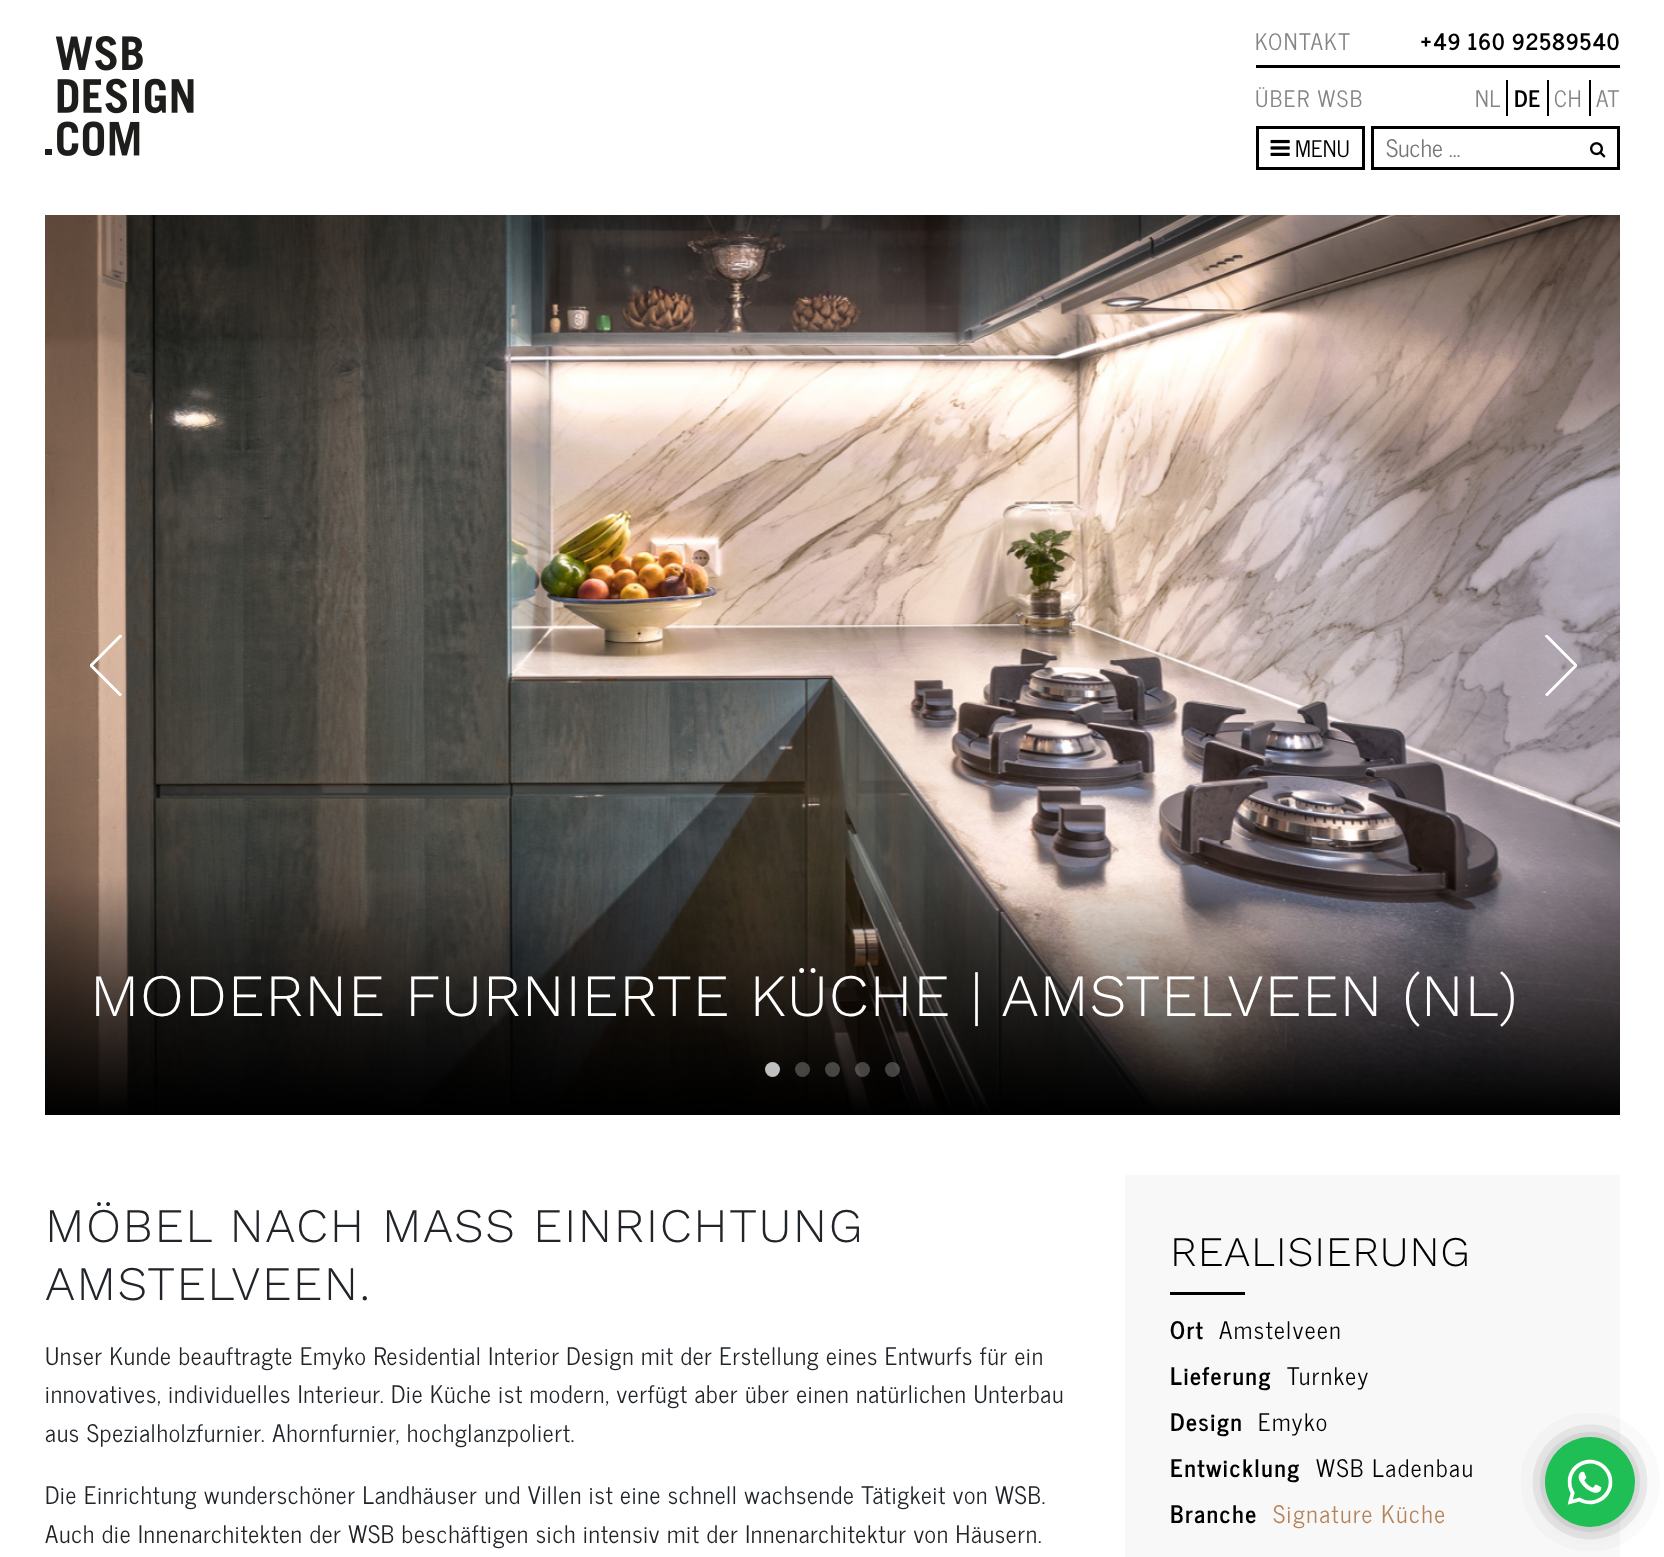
<svg xmlns="http://www.w3.org/2000/svg" width="1664" height="1557" viewBox="0 0 1664 1557">
  <defs>
    <clipPath id="clip1"><rect x="90" y="635" width="32" height="61"/></clipPath>
    <clipPath id="clip2"><rect x="1545" y="635" width="32" height="61"/></clipPath>
  </defs>
  <rect width="100%" height="100%" fill="rgb(255,255,255)"/>
  <image x="45" y="36" width="149" height="120" href="pic1.png"/>
  <text x="1255" y="50" font-family="News Cycle" font-size="22.5" letter-spacing="1.5" fill="rgb(133,133,133)">KONTAKT</text>
  <text x="1421" y="50" font-family="News Cycle" font-size="22.5" font-weight="bold" letter-spacing="0.75" fill="rgb(0,0,0)">+49 160 92589540</text>
  <rect x="1256" y="65" width="364" height="3" fill="rgb(0,0,0)"/>
  <text x="1255" y="107" font-family="News Cycle" font-size="22.5" letter-spacing="1.5" fill="rgb(133,133,133)">ÜBER WSB</text>
  <text x="1475" y="107" font-family="News Cycle" font-size="22.5" letter-spacing="0.75" fill="rgb(133,133,133)">NL</text>
  <rect x="1506" y="80" width="2" height="36" fill="rgb(0,0,0)"/>
  <text x="1514" y="107" font-family="News Cycle" font-size="22.5" font-weight="bold" letter-spacing="0.75" fill="rgb(0,0,0)">DE</text>
  <rect x="1547" y="80" width="2" height="36" fill="rgb(0,0,0)"/>
  <text x="1554" y="107" font-family="News Cycle" font-size="22.5" letter-spacing="0.75" fill="rgb(133,133,133)">CH</text>
  <rect x="1589" y="80" width="2" height="36" fill="rgb(0,0,0)"/>
  <text x="1596" y="107" font-family="News Cycle" font-size="22.5" letter-spacing="0.75" fill="rgb(133,133,133)">AT</text>
  <rect x="1257.5" y="127.5" width="106" height="41" fill="none" stroke="rgb(0,0,0)" stroke-width="3"/>
  <image x="1270" y="139" width="20" height="17" href="pic2.png"/>
  <text x="1295" y="157" font-family="News Cycle" font-size="22.5" fill="rgb(0,0,0)">MENU</text>
  <rect x="1372.5" y="127.5" width="246" height="41" fill="none" stroke="rgb(0,0,0)" stroke-width="3"/>
  <text x="1386" y="157" font-family="News Cycle" font-size="24" fill="rgb(117,117,117)">Suche …</text>
  <image x="1590" y="142" width="16" height="16" href="pic3.png"/>
  <image x="45" y="215" width="1575" height="900" href="pic4.png"/>
  <g clip-path="url(#clip1)">
    <path d="M121.5 635L91 665.5L121 695.5" fill="none" stroke="rgb(255,255,255)" stroke-width="3"/>
  </g>
  <g clip-path="url(#clip2)">
    <path d="M1545.5 635L1576 665.5L1546 695.5" fill="none" stroke="rgb(255,255,255)" stroke-width="3"/>
  </g>
  <circle cx="772.5" cy="1069.5" r="7.5" fill="rgba(255,255,255,0.75)"/>
  <circle cx="802.5" cy="1069.5" r="7.5" fill="rgba(255,255,255,0.25)"/>
  <circle cx="832.5" cy="1069.5" r="7.5" fill="rgba(255,255,255,0.25)"/>
  <circle cx="862.5" cy="1069.5" r="7.5" fill="rgba(255,255,255,0.25)"/>
  <circle cx="892.5" cy="1069.5" r="7.5" fill="rgba(255,255,255,0.25)"/>
  <text x="90" y="1016" font-family="Work Sans" font-size="60" font-weight="300" letter-spacing="0.75" fill="rgb(255,255,255)">MODERNE FURNIERTE KÜCHE | AMSTELVEEN (NL)</text>
  <g font-family="Work Sans" font-size="48" font-weight="300" letter-spacing="1.5" fill="rgb(33,37,41)">
    <text>
      <tspan x="45" y="1242">MÖBEL NACH MASS EINRICHTUNG</tspan>
      <tspan x="45" y="1300">AMSTELVEEN.</tspan>
    </text>
  </g>
  <g font-family="News Cycle" font-size="24" letter-spacing="0.75" fill="rgb(33,37,41)">
    <text>
      <tspan x="45" y="1365">Unser Kunde beauftragte Emyko Residential Interior Design mit der Erstellung eines Entwurfs für ein</tspan>
      <tspan x="45" y="1403">innovatives, individuelles Interieur. Die Küche ist modern, verfügt aber über einen natürlichen Unterbau</tspan>
      <tspan x="45" y="1442">aus Spezialholzfurnier. Ahornfurnier, hochglanzpoliert.</tspan>
    </text>
    <text>
      <tspan x="45" y="1504">Die Einrichtung wunderschöner Landhäuser und Villen ist eine schnell wachsende Tätigkeit von WSB.</tspan>
      <tspan x="45" y="1543">Auch die Innenarchitekten der WSB beschäftigen sich intensiv mit der Innenarchitektur von Häusern.</tspan>
    </text>
  </g>
  <rect x="1125" y="1175" width="495" height="382" fill="rgb(248,248,248)"/>
  <text x="1170" y="1266" font-family="Work Sans" font-size="42" font-weight="300" letter-spacing="0.75" fill="rgb(0,0,0)">REALISIERUNG</text>
  <rect x="1170" y="1292" width="75" height="3" fill="rgb(0,0,0)"/>
  <text x="1170" y="1339" font-family="News Cycle" font-size="24" font-weight="bold" letter-spacing="1.5" fill="rgb(0,0,0)">Ort</text>
  <text x="1219" y="1339" font-family="News Cycle" font-size="24" letter-spacing="1.5" fill="rgb(0,0,0)">Amstelveen</text>
  <text x="1170" y="1385" font-family="News Cycle" font-size="24" font-weight="bold" letter-spacing="1.5" fill="rgb(0,0,0)">Lieferung</text>
  <text x="1287" y="1385" font-family="News Cycle" font-size="24" letter-spacing="1.5" fill="rgb(0,0,0)">Turnkey</text>
  <text x="1170" y="1431" font-family="News Cycle" font-size="24" font-weight="bold" letter-spacing="1.5" fill="rgb(0,0,0)">Design</text>
  <text x="1258" y="1431" font-family="News Cycle" font-size="24" letter-spacing="1.5" fill="rgb(0,0,0)">Emyko</text>
  <text x="1170" y="1477" font-family="News Cycle" font-size="24" font-weight="bold" letter-spacing="1.5" fill="rgb(0,0,0)">Entwicklung</text>
  <text x="1316" y="1477" font-family="News Cycle" font-size="24" letter-spacing="1.5" fill="rgb(0,0,0)">WSB Ladenbau</text>
  <text x="1170" y="1523" font-family="News Cycle" font-size="24" font-weight="bold" letter-spacing="1.5" fill="rgb(0,0,0)">Branche</text>
  <text x="1273" y="1523" font-family="News Cycle" font-size="24" letter-spacing="1.5" fill="rgb(181,131,89)">Signature Küche</text>
  <image x="1521" y="1413" width="139" height="138" href="pic5.png"/>
</svg>
